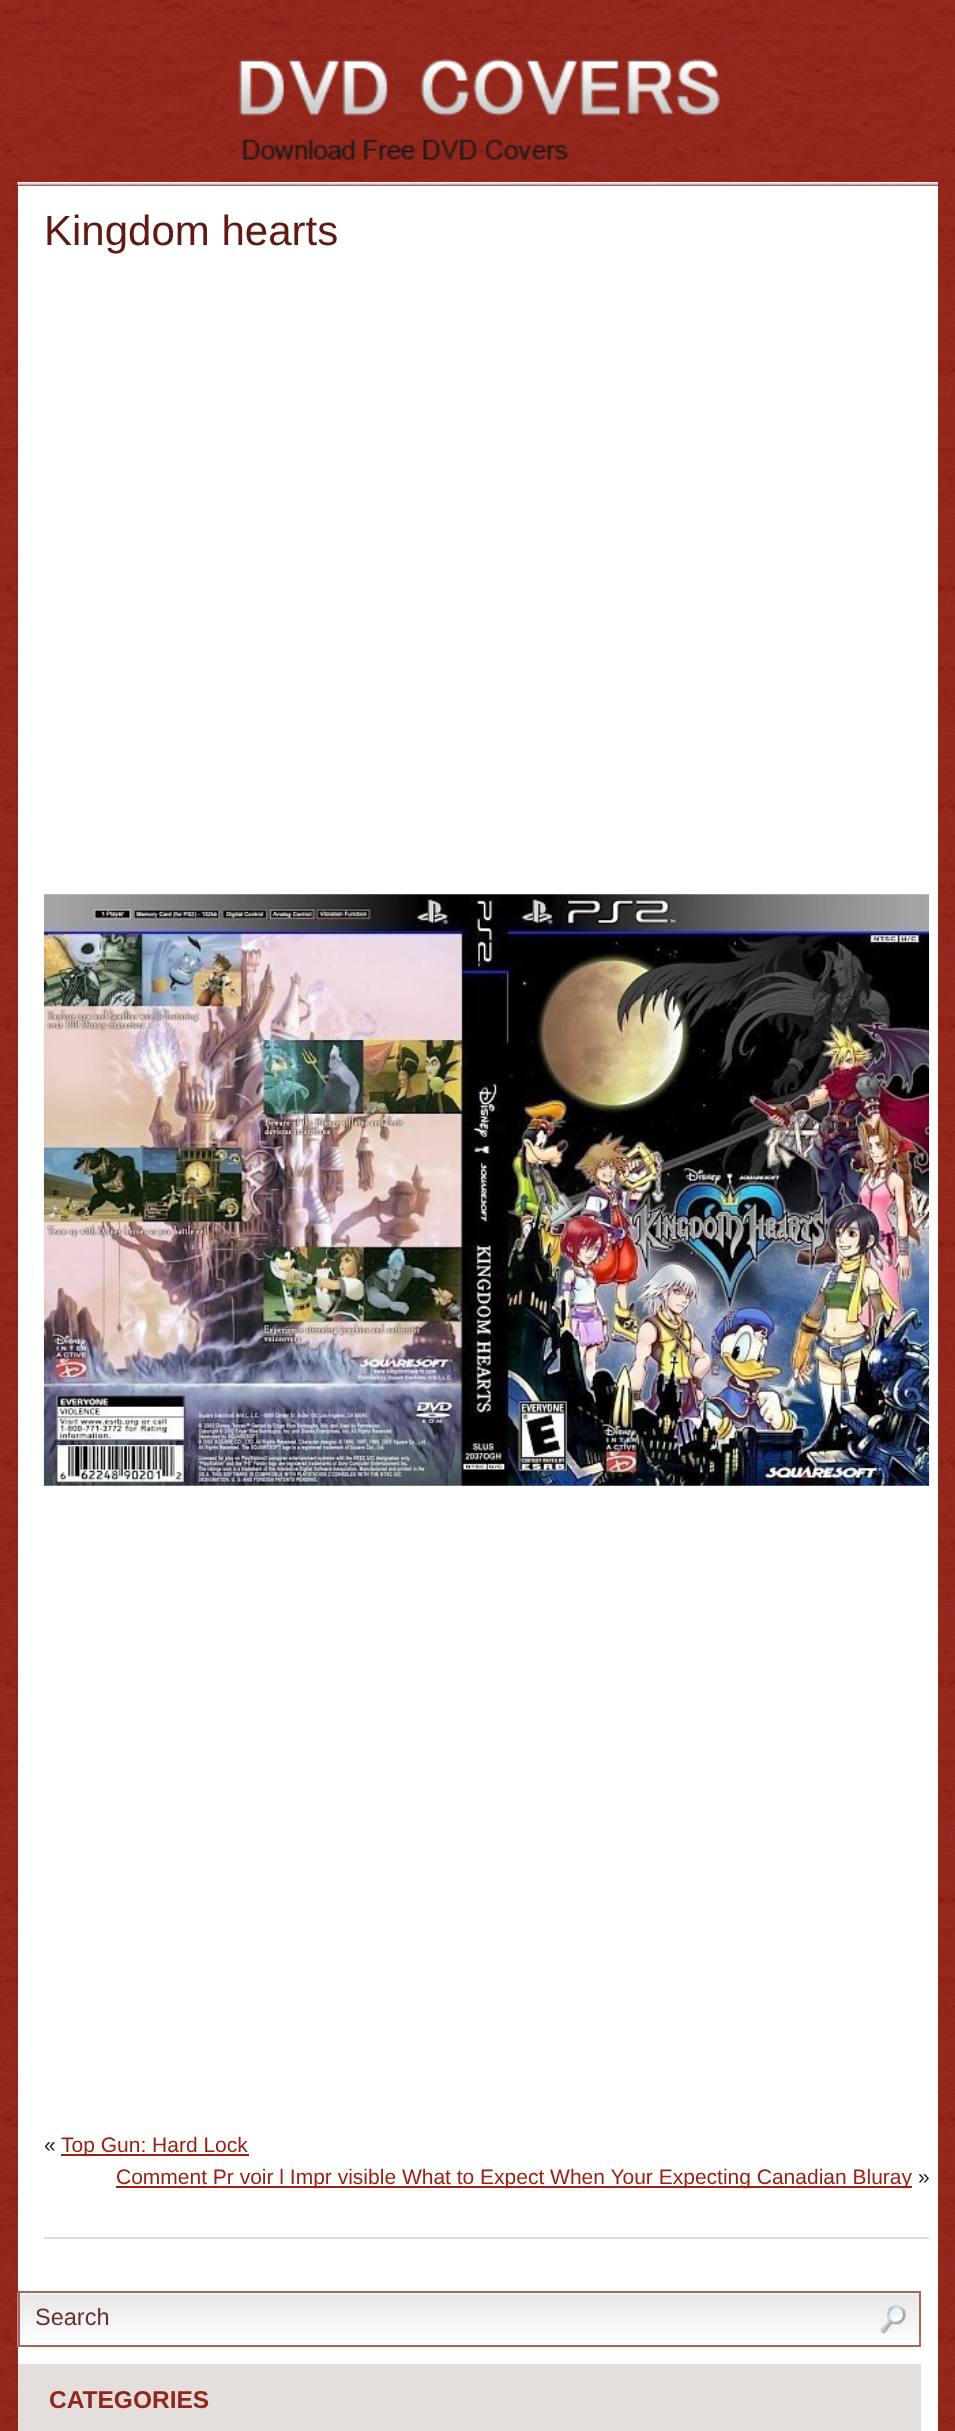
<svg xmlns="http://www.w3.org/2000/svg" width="955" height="2431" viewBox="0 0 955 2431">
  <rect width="100%" height="100%" fill="rgb(255,255,255)"/>
  <image x="0" y="0" width="955" height="2431" href="pic1.png"/>
  <image x="17" y="182" width="921" height="4" href="pic2.png"/>
  <image x="238" y="58" width="482" height="102" href="pic3.png"/>
  <rect x="18" y="186" width="920" height="2245" fill="rgb(255,255,255)"/>
  <rect x="44" y="2237" width="885" height="2" fill="rgb(221,221,221)"/>
  <text x="44" y="245" font-family="Liberation Sans" font-size="42" fill="rgb(94,26,19)">Kingdom hearts</text>
  <image x="43" y="894" width="887" height="592" href="pic4.png"/>
  <text x="44" y="2152" font-family="Liberation Sans" font-size="21" fill="rgb(34,34,34)">«</text>
  <rect x="61" y="2154" width="188" height="2" fill="rgb(154,32,19)"/>
  <text x="61" y="2152" font-family="Liberation Sans" font-size="21" fill="rgb(154,32,19)">Top Gun: Hard Lock</text>
  <rect x="116" y="2186" width="796" height="2" fill="rgb(154,32,19)"/>
  <text x="116" y="2184" font-family="Liberation Sans" font-size="21" fill="rgb(154,32,19)">Comment Pr voir l Impr visible What to Expect When Your Expecting Canadian Bluray</text>
  <text x="918" y="2184" font-family="Liberation Sans" font-size="21" fill="rgb(34,34,34)">»</text>
  <image x="17" y="2292" width="902" height="55" href="pic5.png"/>
  <rect x="19" y="2292" width="901" height="54" fill="none" stroke="rgb(167,101,94)" stroke-width="2"/>
  <text x="35" y="2325" font-family="Liberation Sans" font-size="23.5" fill="rgb(98,51,45)">Search</text>
  <image x="880" y="2304" width="27" height="30" href="pic6.png"/>
  <rect x="18" y="2364" width="903" height="67" fill="rgb(228,222,221)"/>
  <text x="49" y="2408" font-family="Liberation Sans" font-size="24.5" font-weight="bold" fill="rgb(146,38,26)">CATEGORIES</text>
</svg>
